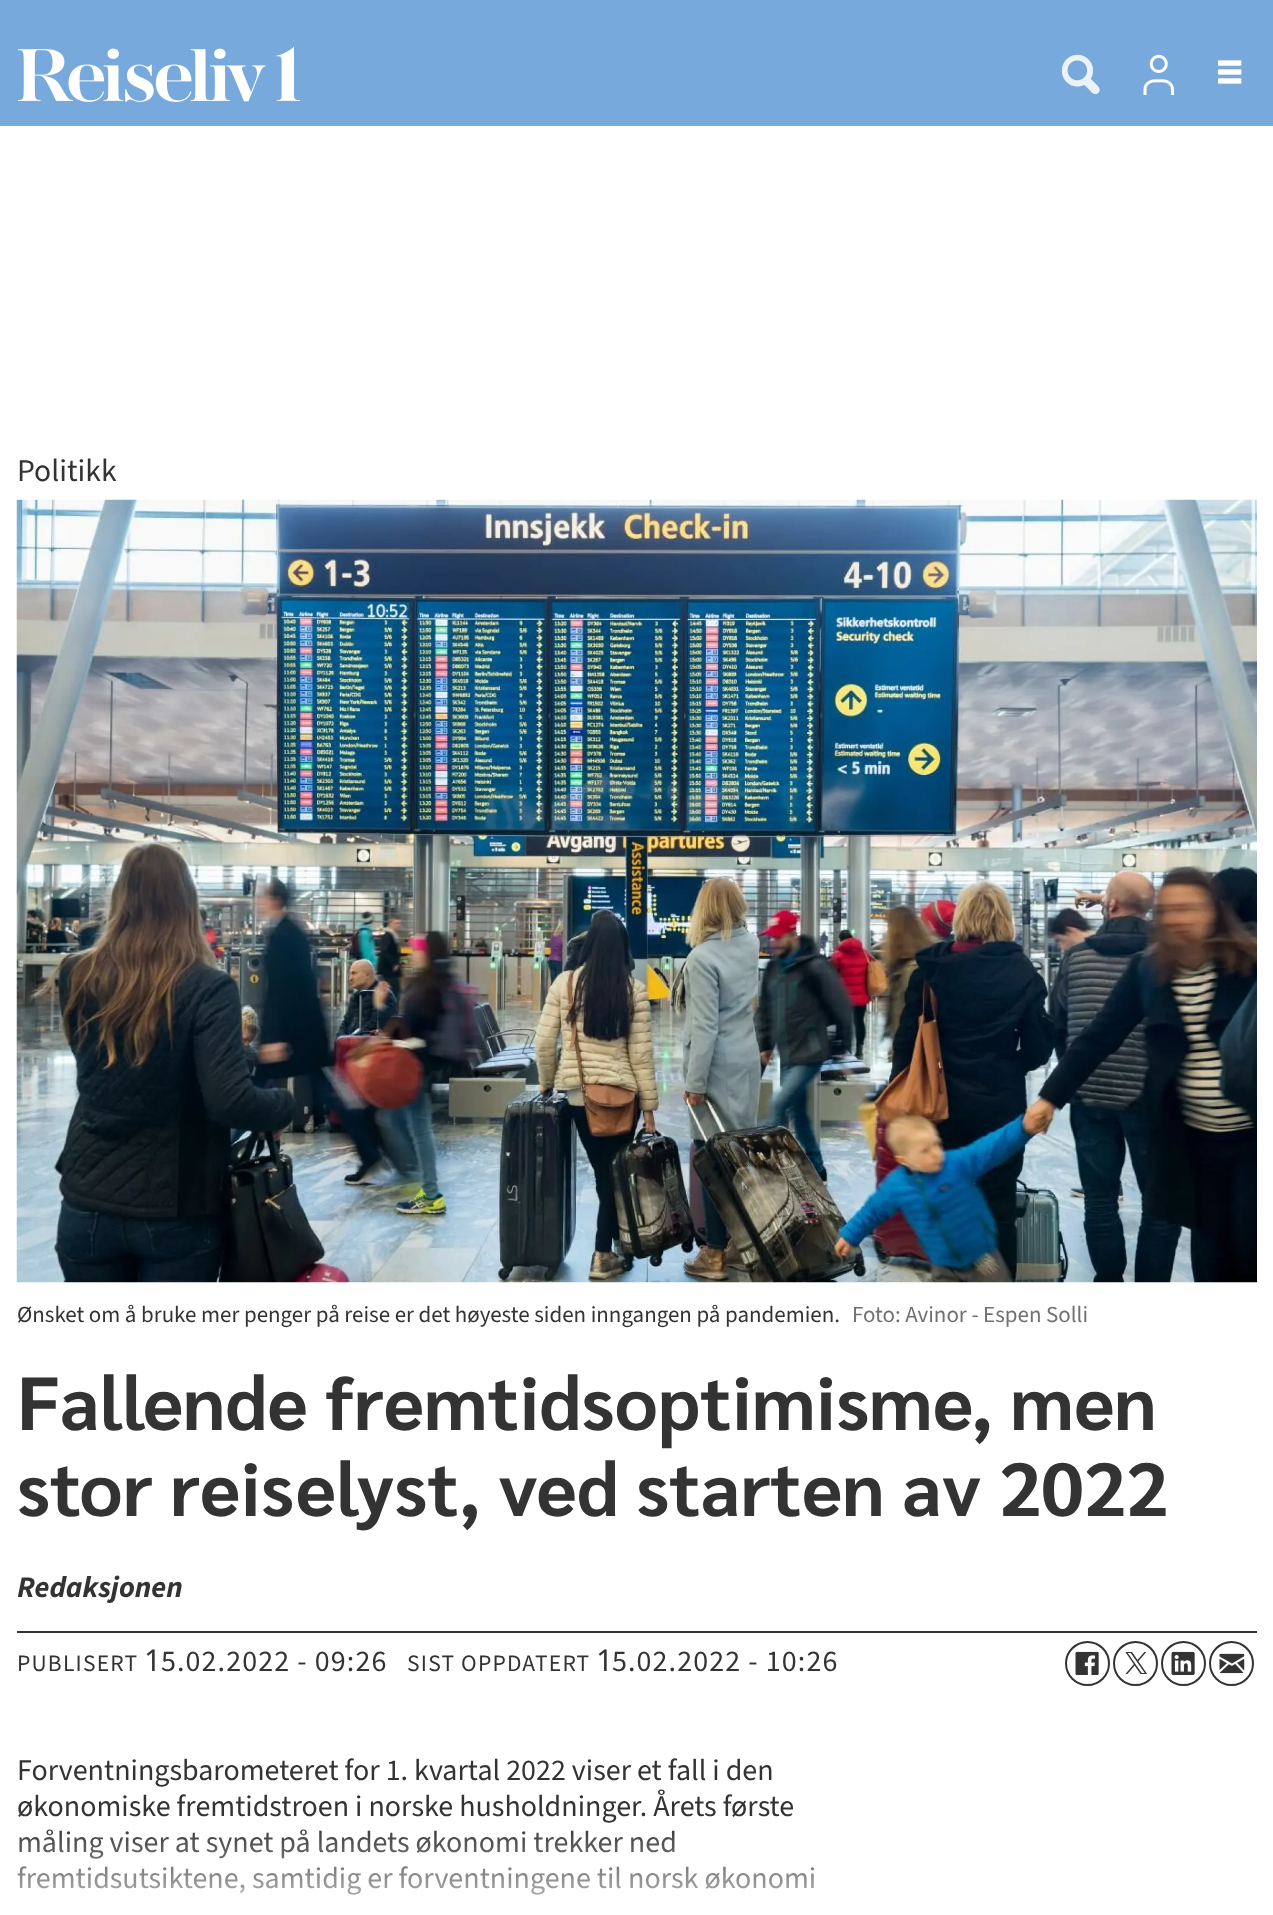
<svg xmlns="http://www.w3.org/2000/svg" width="1273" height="1915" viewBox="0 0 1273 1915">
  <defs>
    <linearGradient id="g1" gradientUnits="userSpaceOnUse" x1="637" y1="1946" x2="637" y2="1742"><stop offset="0" stop-color="rgb(255,255,255)"/><stop offset="0.6" stop-color="rgb(255,255,255)" stop-opacity="0"/><stop offset="1" stop-color="rgb(255,255,255)" stop-opacity="0"/></linearGradient>
  </defs>
  <rect width="100%" height="100%" fill="rgb(255,255,255)"/>
  <rect x="0" y="0" width="1273" height="126" fill="rgb(119,169,221)"/>
  <image x="18" y="47" width="282" height="55" href="pic1.png"/>
  <image x="1061" y="54" width="39" height="41" href="pic2.png"/>
  <image x="1143" y="54" width="31" height="41" href="pic3.png"/>
  <image x="1218" y="60" width="24" height="24" href="pic4.png"/>
  <text x="17" y="481" font-family="'Source Sans 3'" font-size="31.5" fill="rgb(51,51,51)">Politikk</text>
  <image x="16" y="499" width="1241" height="784" href="pic5.png"/>
  <text x="17" y="1322" font-family="'Source Sans 3'" font-size="22.95" fill="rgb(51,51,51)">Ønsket om å bruke mer penger på reise er det høyeste siden inngangen på pandemien.</text>
  <text x="852" y="1322" font-family="'Source Sans 3'" font-size="22.95" fill="rgb(112,112,112)">Foto: Avinor - Espen Solli</text>
  <g font-family="Sarabun" font-size="75" font-weight="bold" fill="rgb(51,51,51)">
    <text>
      <tspan x="17" y="1430">Fallende fremtidsoptimisme, men</tspan>
      <tspan x="17" y="1516">stor reiselyst, ved starten av 2022</tspan>
    </text>
  </g>
  <rect x="17" y="1631" width="1240" height="2" fill="rgb(51,51,51)"/>
  <text x="17" y="1597" font-family="'Source Sans 3'" font-size="30" font-weight="bold" font-style="italic" fill="rgb(51,51,51)">Redaksjonen</text>
  <text x="17" y="1671" font-family="'Source Sans 3'" font-size="23.5" letter-spacing="1.2" fill="rgb(51,51,51)">PUBLISERT</text>
  <text x="144" y="1671" font-family="Noto Sans" font-size="30" letter-spacing="1.1" fill="rgb(51,51,51)">1</text>
  <text x="161" y="1671" font-family="'Source Sans 3'" font-size="30" letter-spacing="1.1" fill="rgb(51,51,51)">5.02.2022 - 09:26</text>
  <text x="407" y="1671" font-family="'Source Sans 3'" font-size="23.5" letter-spacing="1.2" fill="rgb(51,51,51)">SIST OPPDATERT</text>
  <text x="596" y="1671" font-family="Noto Sans" font-size="30" letter-spacing="1.1" fill="rgb(51,51,51)">1</text>
  <text x="612" y="1671" font-family="'Source Sans 3'" font-size="30" letter-spacing="1.1" fill="rgb(51,51,51)">5.02.2022 - 10:26</text>
  <circle cx="1087.5" cy="1663.5" r="21.5" fill="none" stroke="rgb(51,51,51)" stroke-width="2"/>
  <image x="1075" y="1651" width="24" height="24" href="pic6.png"/>
  <circle cx="1135.5" cy="1663.5" r="21.5" fill="none" stroke="rgb(51,51,51)" stroke-width="2"/>
  <image x="1125" y="1652" width="22" height="22" href="pic7.png"/>
  <circle cx="1183.5" cy="1663.5" r="21.5" fill="none" stroke="rgb(51,51,51)" stroke-width="2"/>
  <image x="1171" y="1651" width="24" height="24" href="pic8.png"/>
  <circle cx="1231.5" cy="1663.5" r="21.5" fill="none" stroke="rgb(51,51,51)" stroke-width="2"/>
  <image x="1219" y="1653" width="26" height="21" href="pic9.png"/>
  <g font-family="'Source Sans 3'" font-size="30" fill="rgb(51,51,51)">
    <text>
      <tspan x="17" y="1780">Forventningsbarometeret for 1. kvartal 2022 viser et fall i den</tspan>
      <tspan x="17" y="1816">økonomiske fremtidstroen i norske husholdninger. Årets første</tspan>
      <tspan x="17" y="1852">måling viser at synet på landets økonomi trekker ned</tspan>
      <tspan x="17" y="1888">fremtidsutsiktene, samtidig er forventningene til norsk økonomi</tspan>
    </text>
  </g>
  <rect x="17" y="1829" width="797" height="66" fill="url(#g1)"/>
</svg>
